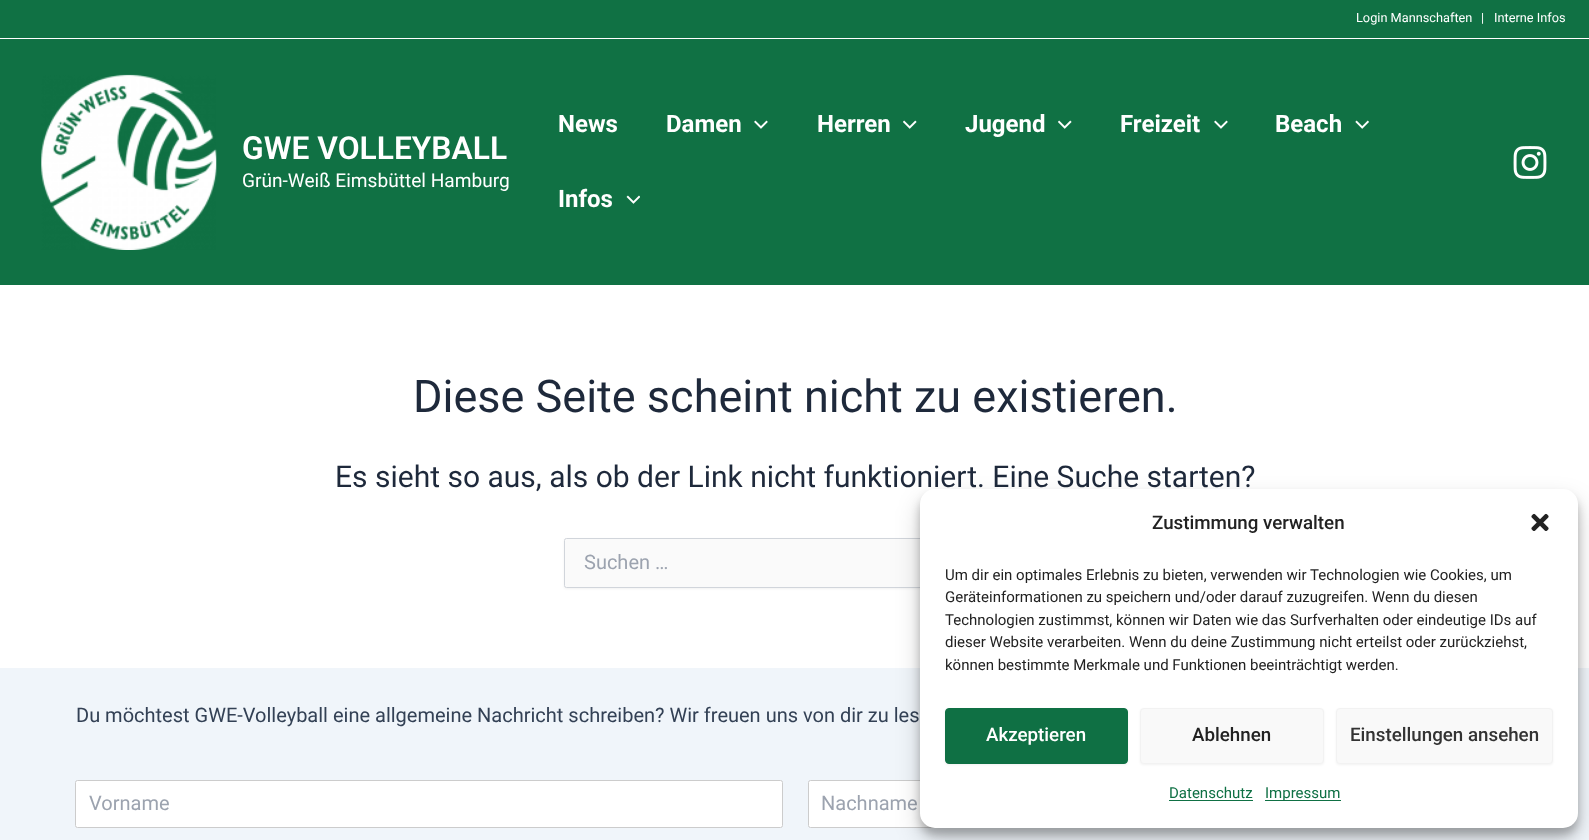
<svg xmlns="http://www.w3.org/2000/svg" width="1589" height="840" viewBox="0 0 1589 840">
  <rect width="100%" height="100%" fill="rgb(255,255,255)"/>
  <rect x="0" y="0" width="1589" height="38" fill="rgb(16,113,68)"/>
  <g font-family="Roboto" font-size="12.75" fill="rgb(255,255,255)">
    <text x="1356" y="22">Login Mannschaften</text>
    <text x="1481" y="22">|</text>
    <text x="1494" y="22">Interne Infos</text>
  </g>
  <rect x="0" y="39" width="1589" height="246" fill="rgb(16,113,68)"/>
  <image x="41" y="74" width="176" height="176" href="pic1.png"/>
  <text x="242" y="159" font-family="Roboto" font-size="31.75" font-weight="600" fill="rgb(255,255,255)">GWE VOLLEYBALL</text>
  <text x="242" y="187" font-family="Roboto" font-size="19.1" fill="rgb(255,255,255)">Grün-Weiß Eimsbüttel Hamburg</text>
  <g font-family="Roboto" font-size="24" font-weight="bold" fill="rgb(255,255,255)">
    <text x="558" y="132">News</text>
    <text x="666" y="132">Damen</text>
  </g>
  <image x="754" y="120" width="14" height="9" href="pic2.png"/>
  <text x="817" y="132" font-family="Roboto" font-size="24" font-weight="bold" fill="rgb(255,255,255)">Herren</text>
  <image x="903" y="120" width="14" height="9" href="pic3.png"/>
  <text x="965" y="132" font-family="Roboto" font-size="24" font-weight="bold" fill="rgb(255,255,255)">Jugend</text>
  <image x="1058" y="120" width="14" height="9" href="pic3.png"/>
  <text x="1120" y="132" font-family="Roboto" font-size="24" font-weight="bold" fill="rgb(255,255,255)">Freizeit</text>
  <image x="1214" y="120" width="14" height="9" href="pic2.png"/>
  <text x="1275" y="132" font-family="Roboto" font-size="24" font-weight="bold" fill="rgb(255,255,255)">Beach</text>
  <image x="1355" y="120" width="14" height="9" href="pic4.png"/>
  <text x="558" y="207" font-family="Roboto" font-size="24" font-weight="bold" fill="rgb(255,255,255)">Infos</text>
  <image x="626" y="195" width="14" height="9" href="pic5.png"/>
  <image x="1513" y="146" width="34" height="33" href="pic6.png"/>
  <text x="413" y="412" font-family="Roboto" font-size="45" fill="rgb(30,41,59)">Diese Seite scheint nicht zu existieren.</text>
  <text x="335" y="487" font-family="Roboto" font-size="30" fill="rgb(30,41,59)">Es sieht so aus, als ob der Link nicht funktioniert. Eine Suche starten?</text>
  <rect x="564" y="539" width="462" height="50" rx="2.5" fill="rgba(0,0,0,0.05)" filter="blur(1px)"/>
  <rect x="564.5" y="538.5" width="461" height="49" rx="2" fill="rgb(250,250,250)" stroke="rgb(209,213,219)"/>
  <text x="584" y="569" font-family="Roboto" font-size="20" fill="rgb(156,163,175)">Suchen …</text>
  <rect x="0" y="668" width="1589" height="172" fill="rgb(240,245,250)"/>
  <text x="76" y="722" font-family="Roboto" font-size="20" fill="rgb(51,65,85)">Du möchtest GWE-Volleyball eine allgemeine Nachricht schreiben? Wir freuen uns von dir zu les</text>
  <rect x="75.5" y="780.5" width="707" height="47" rx="2" fill="rgb(255,255,255)" stroke="rgb(204,204,204)"/>
  <text x="89" y="810" font-family="Roboto" font-size="20" fill="rgb(156,163,175)">Vorname</text>
  <rect x="808.5" y="780.5" width="706" height="47" rx="2" fill="rgb(255,255,255)" stroke="rgb(204,204,204)"/>
  <text x="821" y="810" font-family="Roboto" font-size="20" fill="rgb(156,163,175)">Nachname</text>
  <rect x="920" y="496" width="658" height="339" rx="15" fill="rgba(0,0,0,0.23)" filter="blur(4px)"/>
  <rect x="920" y="501" width="658" height="339" rx="15" fill="rgba(0,0,0,0.19)" filter="blur(12.5px)"/>
  <rect x="920" y="489" width="658" height="339" rx="15" fill="rgb(255,255,255)"/>
  <text x="1152" y="529" font-family="Roboto" font-size="18.75" font-weight="500" fill="rgb(34,34,34)">Zustimmung verwalten</text>
  <image x="1531" y="513" width="18" height="18" href="pic7.png"/>
  <g font-family="Roboto" font-size="15" fill="rgb(34,34,34)">
    <text>
      <tspan x="945" y="580">Um dir ein optimales Erlebnis zu bieten, verwenden wir Technologien wie Cookies, um</tspan>
      <tspan x="945" y="602">Geräteinformationen zu speichern und/oder darauf zuzugreifen. Wenn du diesen</tspan>
      <tspan x="945" y="625">Technologien zustimmst, können wir Daten wie das Surfverhalten oder eindeutige IDs auf</tspan>
      <tspan x="945" y="647">dieser Website verarbeiten. Wenn du deine Zustimmung nicht erteilst oder zurückziehst,</tspan>
      <tspan x="945" y="670">können bestimmte Merkmale und Funktionen beeinträchtigt werden.</tspan>
    </text>
  </g>
  <rect x="945" y="709" width="183" height="56" rx="4" fill="rgba(0,0,0,0.05)" filter="blur(1px)"/>
  <rect x="945.5" y="708.5" width="182" height="55" rx="3.5" fill="rgb(15,112,68)" stroke="rgb(15,112,68)"/>
  <text x="986" y="741" font-family="Roboto" font-size="18.75" font-weight="500" fill="rgb(255,255,255)">Akzeptieren</text>
  <rect x="1140" y="709" width="184" height="56" rx="4" fill="rgba(0,0,0,0.05)" filter="blur(1px)"/>
  <rect x="1140.5" y="708.5" width="183" height="55" rx="3.5" fill="rgb(249,249,249)" stroke="rgb(242,242,242)"/>
  <text x="1192" y="741" font-family="Roboto" font-size="18.75" font-weight="500" fill="rgb(34,34,34)">Ablehnen</text>
  <rect x="1336" y="709" width="217" height="56" rx="4" fill="rgba(0,0,0,0.05)" filter="blur(1px)"/>
  <rect x="1336.5" y="708.5" width="216" height="55" rx="3.5" fill="rgb(249,249,249)" stroke="rgb(242,242,242)"/>
  <text x="1350" y="741" font-family="Roboto" font-size="18.75" font-weight="500" fill="rgb(51,51,51)">Einstellungen ansehen</text>
  <text x="1169" y="798" font-family="Roboto" font-size="15" fill="rgb(15,112,68)">Datenschutz</text>
  <rect x="1169" y="800" width="84" height="1" fill="rgb(15,112,68)"/>
  <rect x="1265" y="800" width="76" height="1" fill="rgb(15,112,68)"/>
  <text x="1265" y="798" font-family="Roboto" font-size="15" fill="rgb(15,112,68)">Impressum</text>
</svg>
